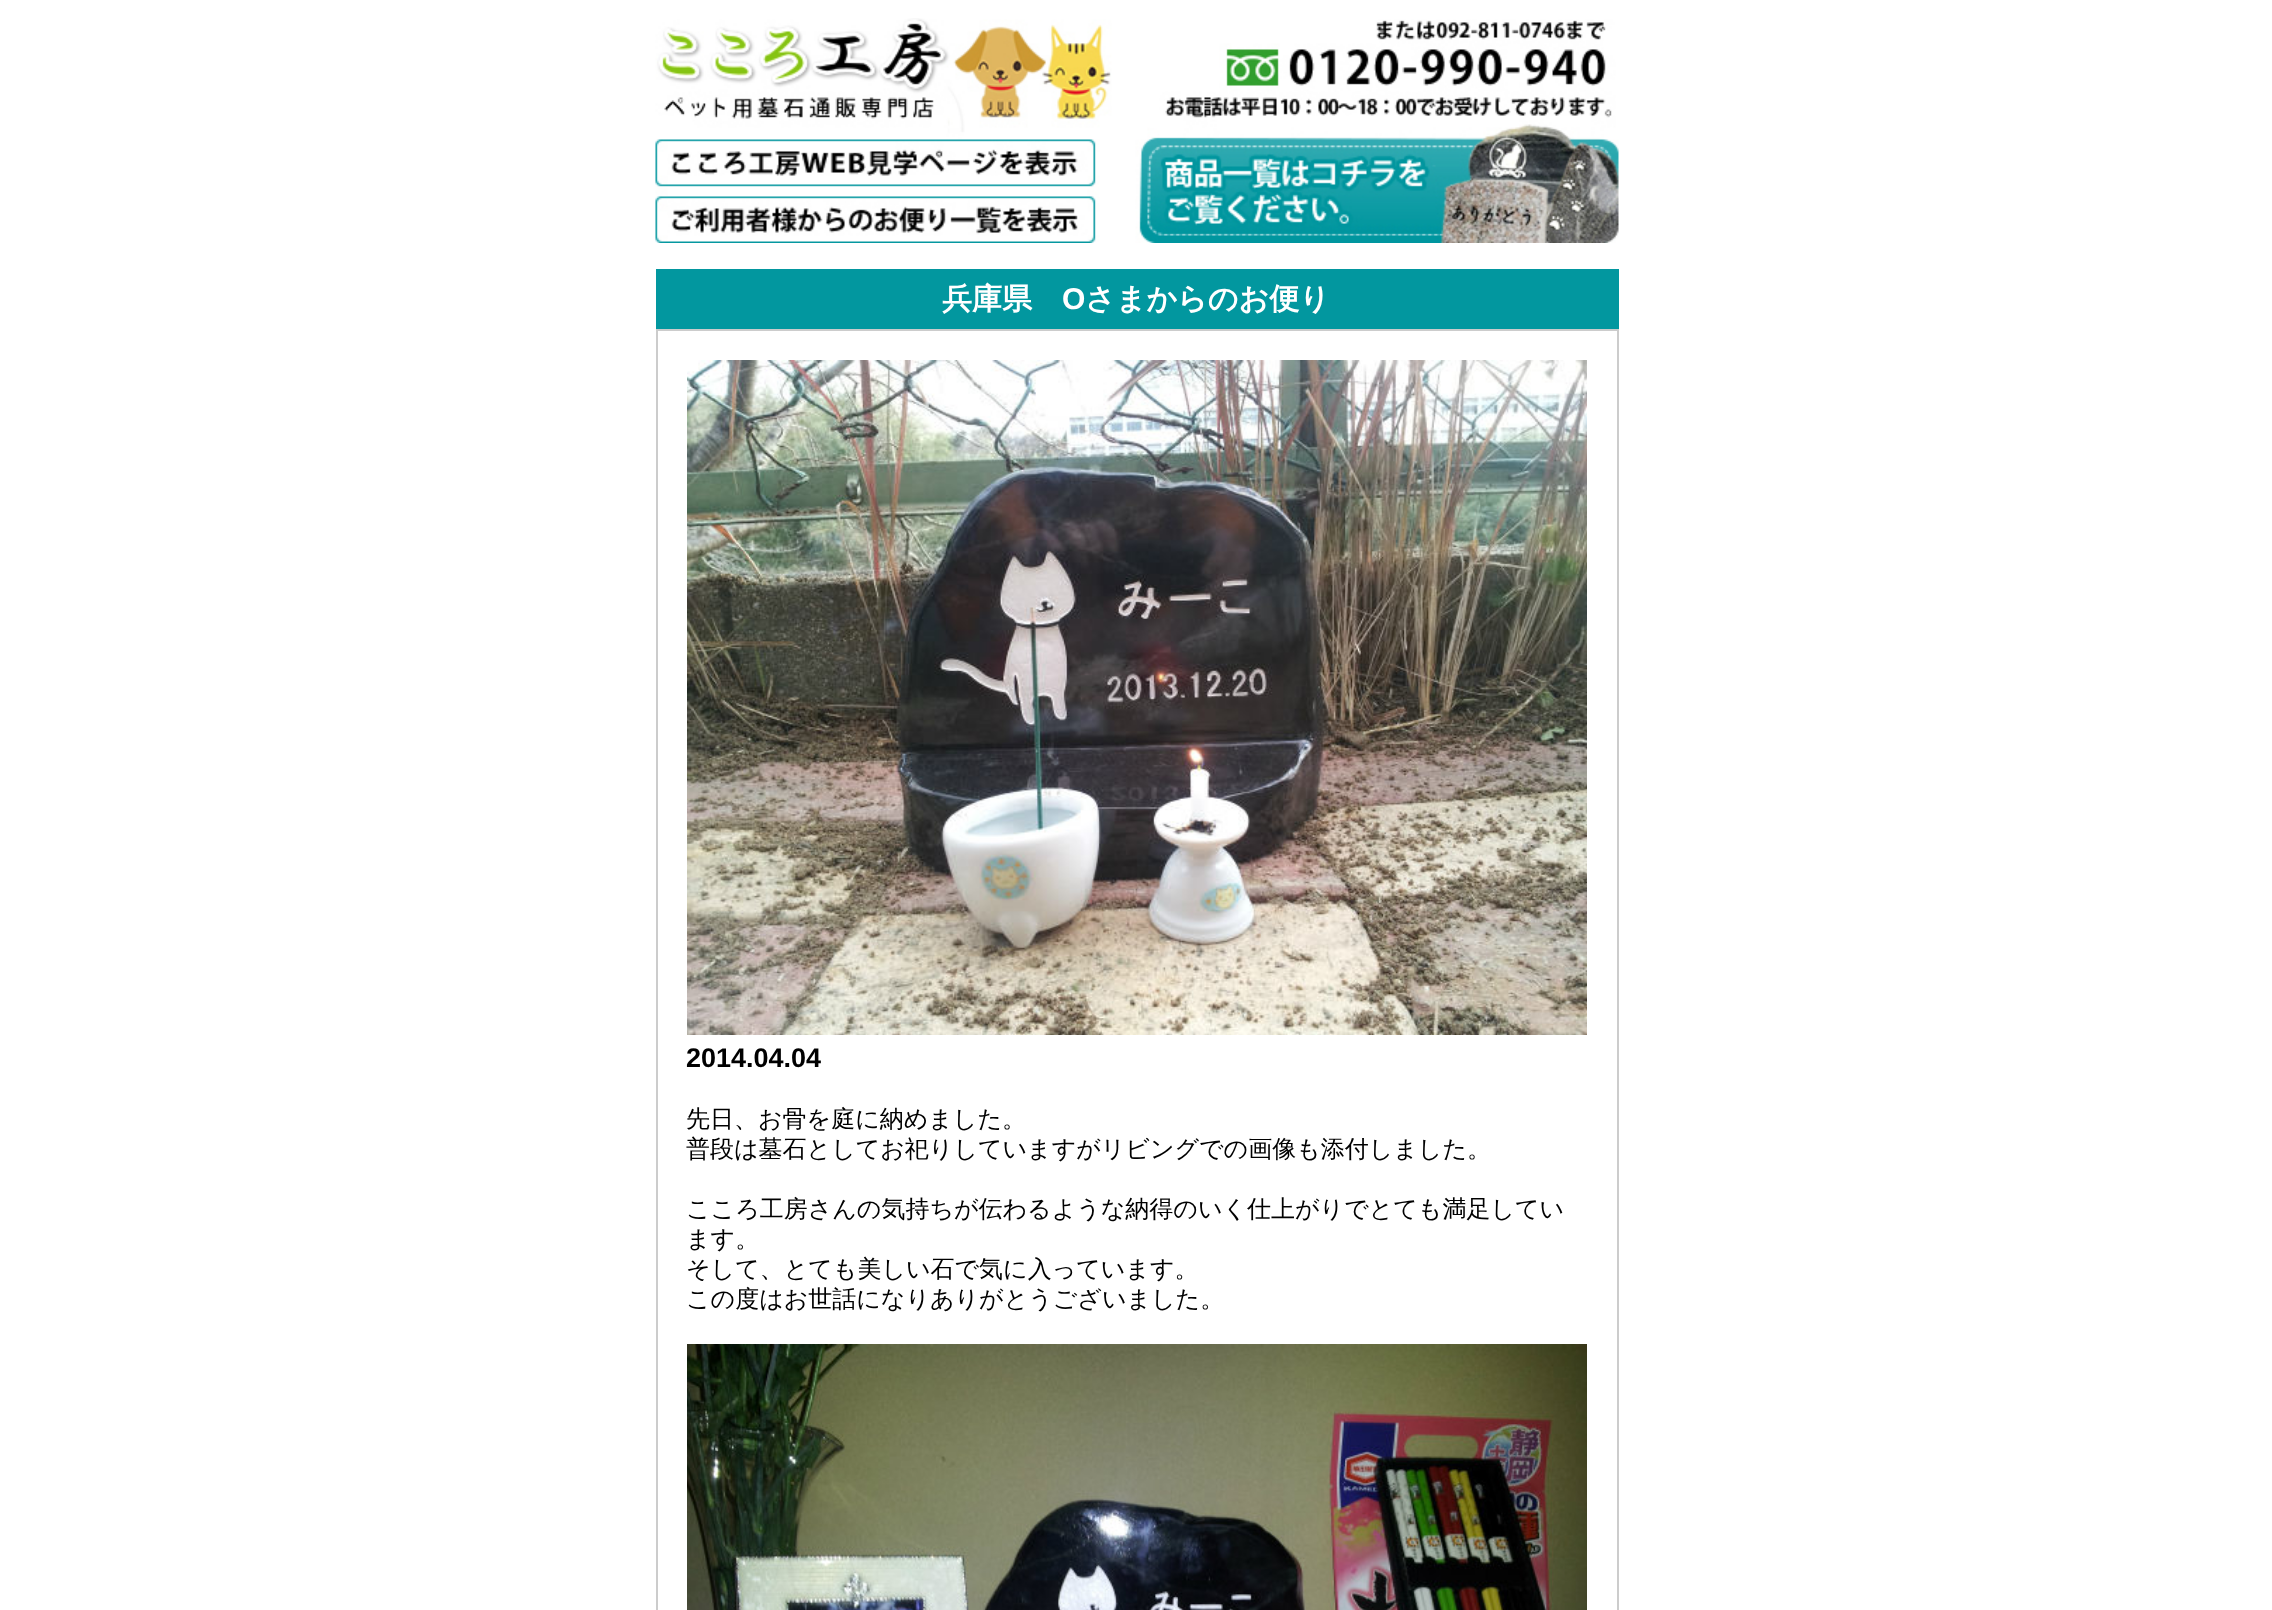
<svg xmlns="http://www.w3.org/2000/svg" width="2272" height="1610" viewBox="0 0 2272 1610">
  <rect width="100%" height="100%" fill="rgb(255,255,255)"/>
  <image x="655" y="18" width="964" height="225" href="pic1.png"/>
  <rect x="656" y="269" width="963" height="60" fill="rgb(2,151,159)"/>
  <text x="942" y="309" font-family="WenQuanYi Zen Hei" font-size="30" font-weight="bold" fill="rgb(255,255,255)">兵庫県</text>
  <text x="1062" y="309" font-family="Liberation Sans" font-size="30" font-weight="bold" fill="rgb(255,255,255)">O</text>
  <text x="1085" y="309" font-family="WenQuanYi Zen Hei" font-size="30" font-weight="bold" fill="rgb(255,255,255)">さまからのお便り</text>
  <rect x="657" y="330" width="961" height="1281" fill="none" stroke="rgb(204,204,204)" stroke-width="2"/>
  <image x="687" y="360" width="900" height="675" href="pic2.png"/>
  <text x="686" y="1067" font-family="Liberation Sans" font-size="27" font-weight="bold" fill="rgb(0,0,0)">2014.04.04</text>
  <g font-family="WenQuanYi Zen Hei" font-size="24" font-weight="500" fill="rgb(0,0,0)">
    <text>
      <tspan x="686" y="1127">先日、お骨を庭に納めました。</tspan>
      <tspan x="686" y="1157">普段は墓石としてお祀りしていますがリビングでの画像も添付しました。</tspan>
    </text>
    <text>
      <tspan x="686" y="1217">こころ工房さんの気持ちが伝わるような納得のいく仕上がりでとても満足してい</tspan>
      <tspan x="686" y="1247">ます。</tspan>
      <tspan x="686" y="1277">そして、とても美しい石で気に入っています。</tspan>
      <tspan x="686" y="1307">この度はお世話になりありがとうございました。</tspan>
    </text>
  </g>
  <image x="687" y="1344" width="900" height="266" href="pic3.png"/>
</svg>
